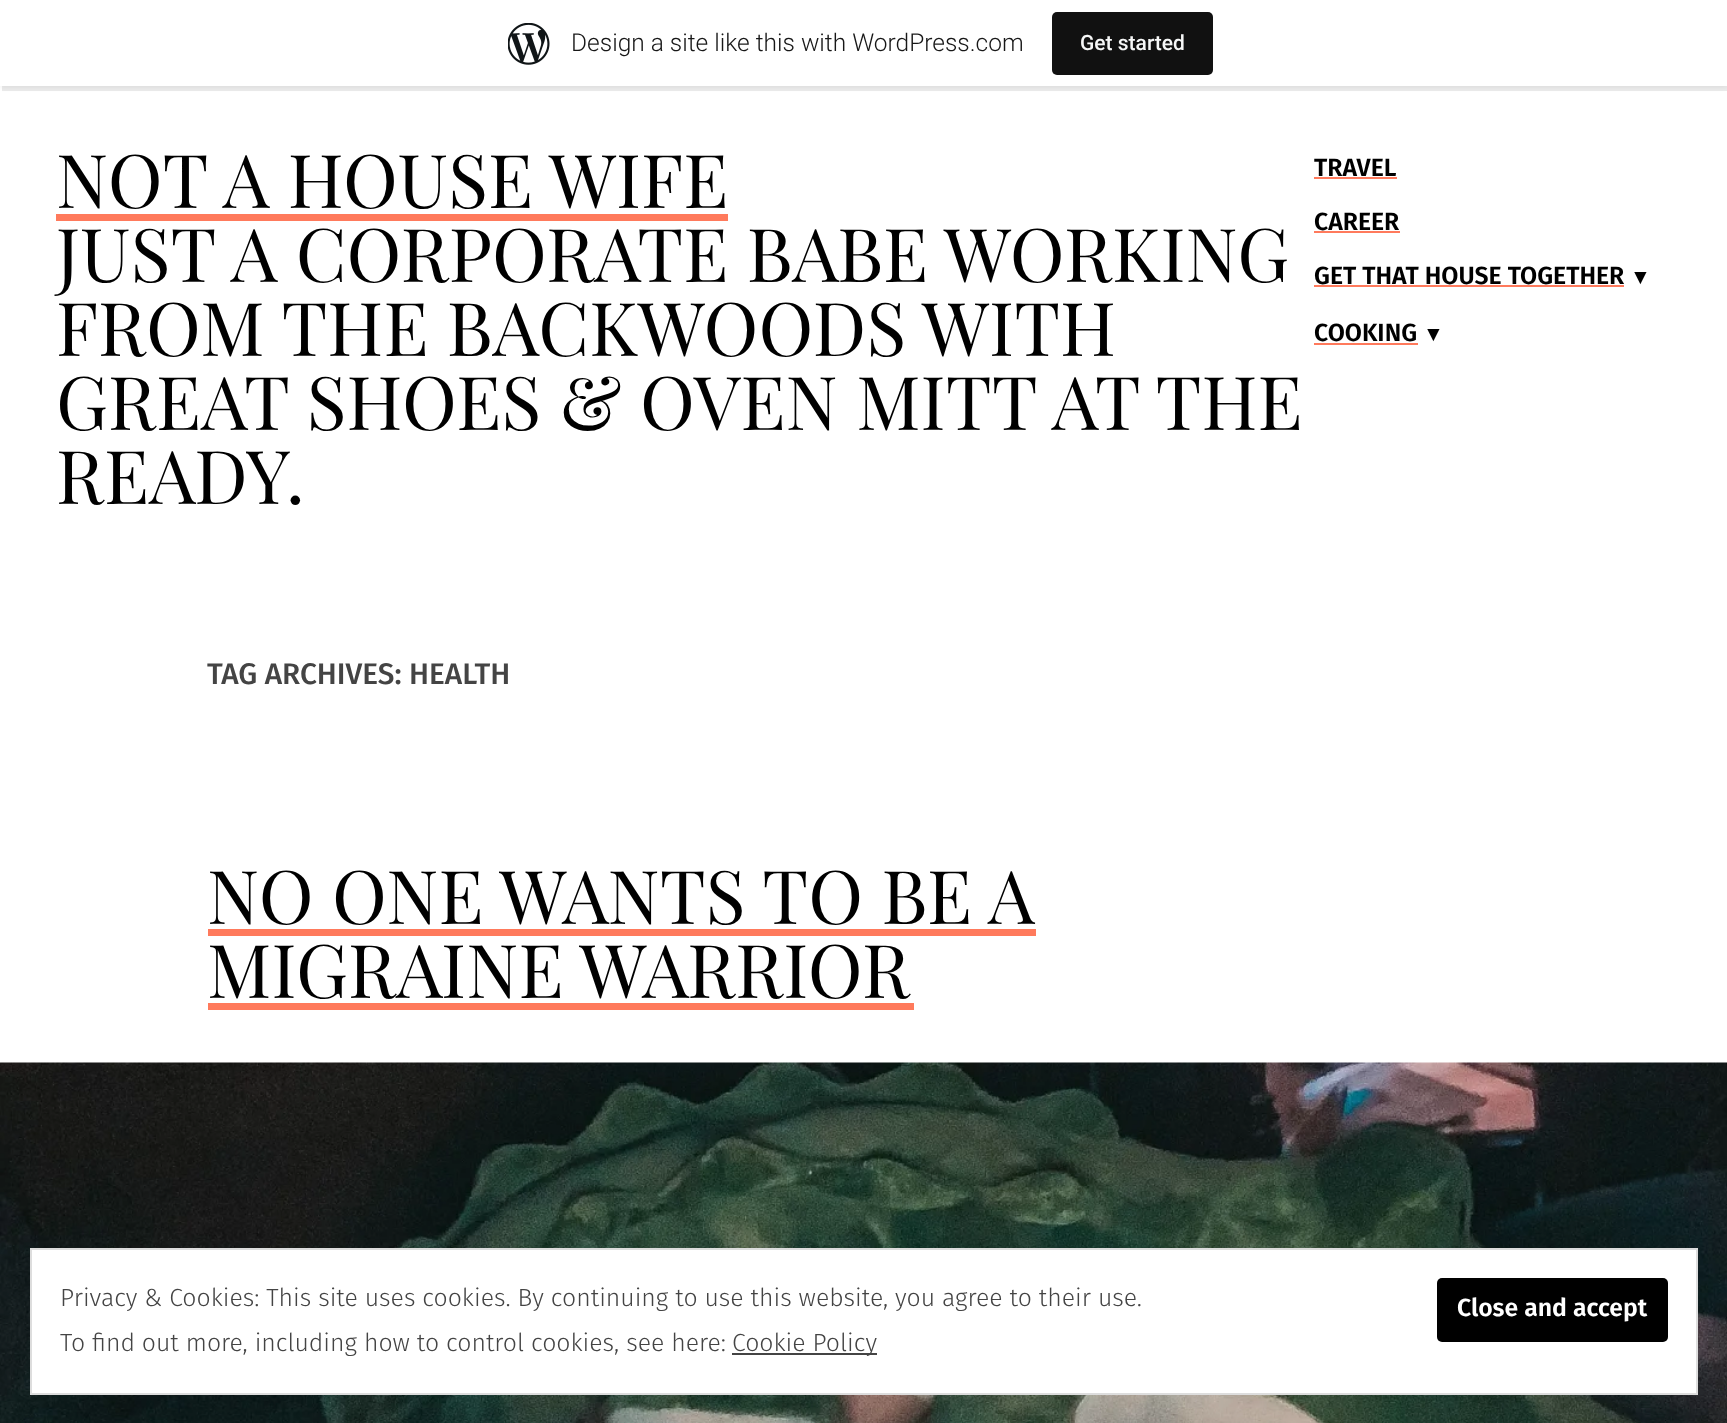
<svg xmlns="http://www.w3.org/2000/svg" width="1727" height="1423" viewBox="0 0 1727 1423">
  <rect width="100%" height="100%" fill="rgb(255,255,255)"/>
  <rect x="0" y="2" width="1727" height="86" fill="rgba(0,0,0,0.05)" filter="blur(2px)"/>
  <path d="M2 86V91H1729V5H1727V86Z" fill="rgba(0,0,0,0.08)"/>
  <rect x="0" y="0" width="1727" height="86" fill="rgb(255,255,255)"/>
  <image x="508" y="23" width="42" height="42" href="pic1.png"/>
  <text x="571" y="51" font-family="Roboto" font-size="24.5" font-weight="300" fill="rgb(23,23,23)">Design a site like this with WordPress.com</text>
  <rect x="1052" y="12" width="161" height="63" rx="5" fill="rgb(17,17,17)"/>
  <text x="1080" y="50" font-family="Roboto" font-size="21" font-weight="500" fill="rgb(246,247,247)">Get started</text>
  <text x="56" y="208" font-family="Playfair Display" font-size="74" fill="rgb(0,0,0)">NOT A HOUSE WIFE</text>
  <rect x="56" y="214" width="672" height="7" fill="rgb(255,122,92)"/>
  <g font-family="Playfair Display" font-size="74" fill="rgb(0,0,0)">
    <text>
      <tspan x="56" y="282">JUST A CORPORATE BABE WORKING</tspan>
      <tspan x="56" y="356">FROM THE BACKWOODS WITH</tspan>
      <tspan x="56" y="430">GREAT SHOES &amp; OVEN MITT AT THE</tspan>
      <tspan x="56" y="504">READY.</tspan>
    </text>
  </g>
  <text x="1314" y="176" font-family="Fira Sans" font-size="24.8" font-weight="600" fill="rgb(0,0,0)">TRAVEL</text>
  <rect x="1314" y="177" width="83" height="2" fill="rgb(255,122,92)"/>
  <text x="1314" y="230" font-family="Fira Sans" font-size="24.8" font-weight="600" fill="rgb(0,0,0)">CAREER</text>
  <rect x="1314" y="231" width="86" height="2" fill="rgb(255,122,92)"/>
  <text x="1314" y="284" font-family="Fira Sans" font-size="24.8" font-weight="600" fill="rgb(0,0,0)">GET THAT HOUSE TOGETHER</text>
  <rect x="1314" y="285" width="310" height="2" fill="rgb(255,122,92)"/>
  <text x="1630" y="284" font-family="Liberation Serif" font-size="21" font-weight="bold" fill="rgb(0,0,0)">▼</text>
  <text x="1314" y="341" font-family="Fira Sans" font-size="24.8" font-weight="600" fill="rgb(0,0,0)">COOKING</text>
  <rect x="1314" y="343" width="104" height="2" fill="rgb(255,122,92)"/>
  <text x="1423" y="341" font-family="Liberation Serif" font-size="21" font-weight="bold" fill="rgb(0,0,0)">▼</text>
  <text x="207" y="684" font-family="Fira Sans" font-size="29.75" font-weight="500" fill="rgb(68,68,68)">TAG ARCHIVES: HEALTH</text>
  <text x="207" y="924" font-family="Playfair Display" font-size="74" fill="rgb(0,0,0)">NO ONE WANTS TO BE A</text>
  <rect x="208" y="929" width="828" height="7" fill="rgb(255,122,92)"/>
  <text x="207" y="998" font-family="Playfair Display" font-size="74" fill="rgb(0,0,0)">MIGRAINE WARRIOR</text>
  <rect x="208" y="1003" width="706" height="7" fill="rgb(255,122,92)"/>
  <image x="0" y="1062" width="1727" height="361" href="pic2.png"/>
  <rect x="31" y="1249" width="1666" height="145" fill="rgb(255,255,255)" stroke="rgb(221,221,221)" stroke-width="2"/>
  <text x="60" y="1306" font-family="Fira Sans" font-size="24.8" font-weight="300" fill="rgb(68,68,68)">Privacy &amp; Cookies: This site uses cookies. By continuing to use this website, you agree to their use.</text>
  <rect x="1437" y="1278" width="231" height="64" rx="5" fill="rgb(0,0,0)"/>
  <text x="1457" y="1316" font-family="Fira Sans" font-size="24.8" font-weight="600" fill="rgb(255,255,255)">Close and accept</text>
  <text x="60" y="1351" font-family="Fira Sans" font-size="24.8" font-weight="300" fill="rgb(68,68,68)">To find out more, including how to control cookies, see here:</text>
  <rect x="732" y="1353" width="145" height="2" fill="rgb(68,68,68)"/>
  <text x="732" y="1351" font-family="Fira Sans" font-size="24.8" font-weight="300" fill="rgb(68,68,68)">Cookie Policy</text>
</svg>
